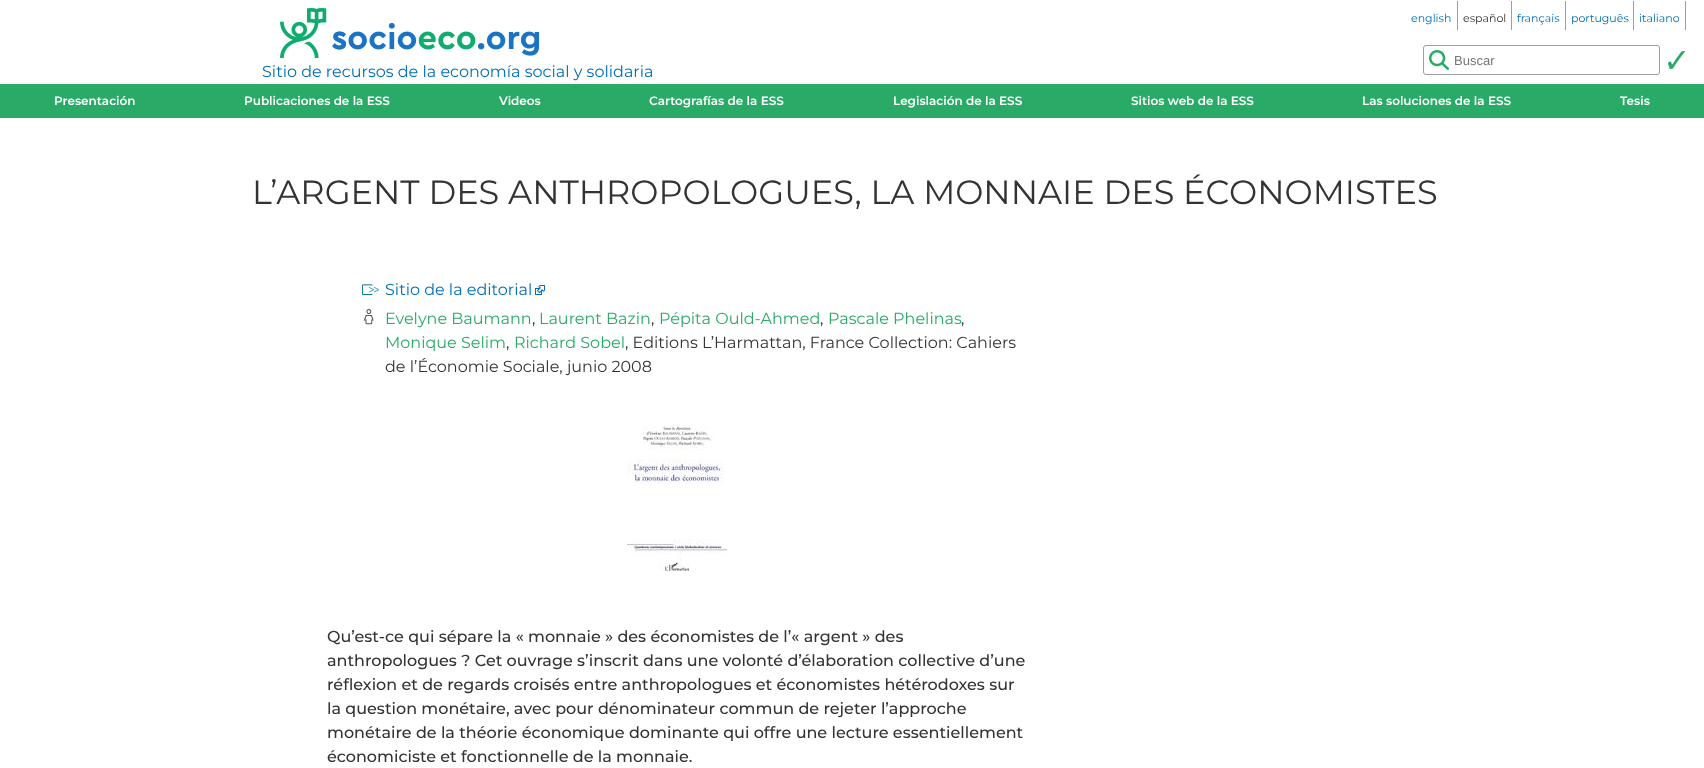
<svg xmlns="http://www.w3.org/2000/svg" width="1704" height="768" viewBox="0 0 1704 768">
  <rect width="100%" height="100%" fill="rgb(255,255,255)"/>
  <rect x="1457" y="1" width="1" height="29" fill="rgb(156,158,159)"/>
  <text x="1411" y="22" font-family="Montserrat" font-size="11" fill="rgb(0,110,182)">english</text>
  <rect x="1511" y="1" width="1" height="29" fill="rgb(156,158,159)"/>
  <text x="1463" y="22" font-family="Montserrat" font-size="11" fill="rgb(51,51,51)">español</text>
  <rect x="1565" y="1" width="1" height="29" fill="rgb(156,158,159)"/>
  <text x="1517" y="22" font-family="Montserrat" font-size="11" fill="rgb(0,110,182)">français</text>
  <rect x="1633" y="1" width="1" height="29" fill="rgb(156,158,159)"/>
  <text x="1571" y="22" font-family="Montserrat" font-size="11" fill="rgb(0,110,182)">português</text>
  <rect x="1685" y="1" width="1" height="29" fill="rgb(156,158,159)"/>
  <text x="1639" y="22" font-family="Montserrat" font-size="11" fill="rgb(0,110,182)">italiano</text>
  <rect x="0" y="84" width="1704" height="34" fill="rgb(41,170,103)"/>
  <image x="1429" y="50" width="20" height="20" href="pic1.png"/>
  <rect x="1423.5" y="45.5" width="236" height="29" rx="2.5" fill="none" stroke="rgb(156,158,159)"/>
  <text x="1454" y="65" font-family="Liberation Sans" font-size="13" fill="rgb(117,117,117)">Buscar</text>
  <image x="1668" y="51" width="17" height="18" href="pic2.png"/>
  <g font-family="Montserrat" font-size="12" font-weight="600" fill="rgb(255,255,255)">
    <text x="54" y="105">Presentación</text>
    <text x="244" y="105">Publicaciones de la ESS</text>
    <text x="499" y="105">Videos</text>
    <text x="649" y="105">Cartografías de la ESS</text>
    <text x="893" y="105">Legislación de la ESS</text>
    <text x="1131" y="105">Sitios web de la ESS</text>
    <text x="1362" y="105">Las soluciones de la ESS</text>
    <text x="1620" y="105">Tesis</text>
  </g>
  <image x="280" y="8" width="259" height="50" href="pic3.png"/>
  <text x="262" y="77" font-family="Montserrat" font-size="16" fill="rgb(0,110,182)">Sitio de recursos de la economía social y solidaria</text>
  <text x="252" y="204" font-family="Montserrat" font-size="33.6" fill="rgb(51,51,51)">L’ARGENT DES ANTHROPOLOGUES, LA MONNAIE DES ÉCONOMISTES</text>
  <image x="361" y="284" width="18" height="11" href="pic4.png"/>
  <text x="385" y="295" font-family="Montserrat" font-size="16" fill="rgb(0,110,182)">Sitio de la editorial</text>
  <image x="535" y="285" width="10" height="10" href="pic5.png"/>
  <image x="363" y="309" width="11" height="16" href="pic6.png"/>
  <text x="385" y="324" font-family="Montserrat" font-size="16" fill="rgb(41,170,103)">Evelyne Baumann</text>
  <text x="532" y="324" font-family="Montserrat" font-size="16" fill="rgb(51,51,51)">,</text>
  <text x="539" y="324" font-family="Montserrat" font-size="16" fill="rgb(41,170,103)">Laurent Bazin</text>
  <text x="651" y="324" font-family="Montserrat" font-size="16" fill="rgb(51,51,51)">,</text>
  <text x="659" y="324" font-family="Montserrat" font-size="16" fill="rgb(41,170,103)">Pépita Ould-Ahmed</text>
  <text x="820" y="324" font-family="Montserrat" font-size="16" fill="rgb(51,51,51)">,</text>
  <text x="828" y="324" font-family="Montserrat" font-size="16" fill="rgb(41,170,103)">Pascale Phelinas</text>
  <text x="961" y="324" font-family="Montserrat" font-size="16" fill="rgb(51,51,51)">,</text>
  <text x="385" y="348" font-family="Montserrat" font-size="16" fill="rgb(41,170,103)">Monique Selim</text>
  <text x="506" y="348" font-family="Montserrat" font-size="16" fill="rgb(51,51,51)">,</text>
  <text x="514" y="348" font-family="Montserrat" font-size="16" fill="rgb(41,170,103)">Richard Sobel</text>
  <g font-family="Montserrat" font-size="16" fill="rgb(51,51,51)">
    <text x="625" y="348">, Editions L’Harmattan, France Collection: Cahiers</text>
    <text x="385" y="372">de l’Économie Sociale, junio 2008</text>
  </g>
  <image x="627" y="425" width="100" height="146" href="pic7.png"/>
  <g font-family="Montserrat" font-size="16" font-weight="500" fill="rgb(51,51,51)">
    <text>
      <tspan x="327" y="642">Qu’est-ce qui sépare la « monnaie » des économistes de l’« argent » des</tspan>
      <tspan x="327" y="666">anthropologues ? Cet ouvrage s’inscrit dans une volonté d’élaboration collective d’une</tspan>
      <tspan x="327" y="690">réflexion et de regards croisés entre anthropologues et économistes hétérodoxes sur</tspan>
      <tspan x="327" y="714">la question monétaire, avec pour dénominateur commun de rejeter l’approche</tspan>
      <tspan x="327" y="738">monétaire de la théorie économique dominante qui offre une lecture essentiellement</tspan>
      <tspan x="327" y="762">économiciste et fonctionnelle de la monnaie.</tspan>
    </text>
  </g>
</svg>
